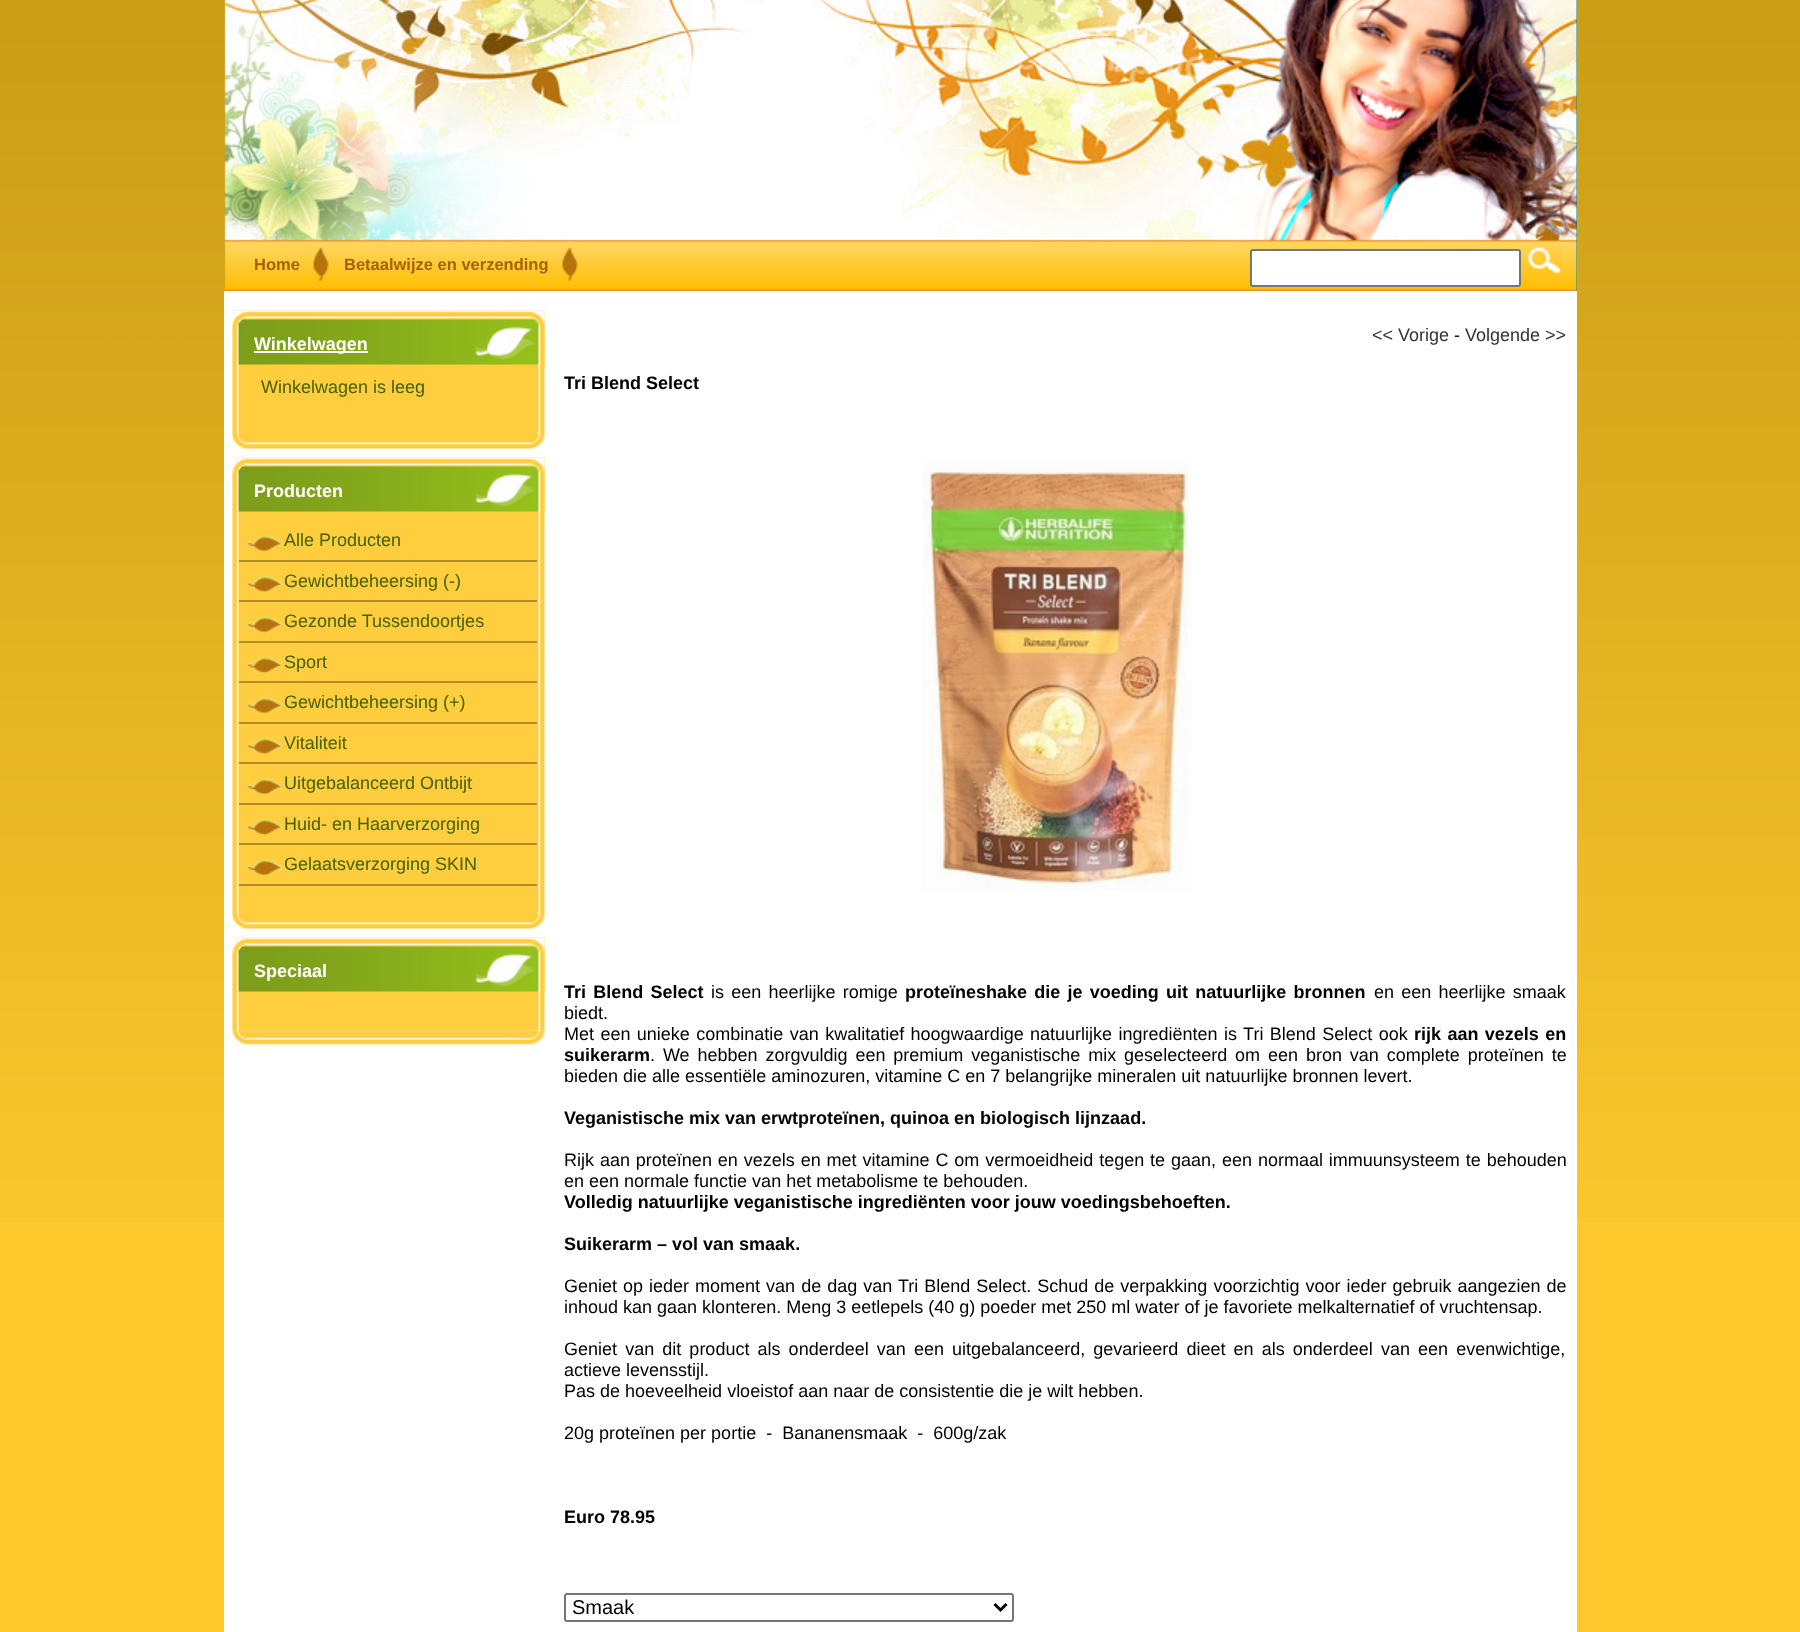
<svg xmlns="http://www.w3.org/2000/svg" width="1800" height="1632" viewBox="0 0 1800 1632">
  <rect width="100%" height="100%" fill="rgb(253,201,45)"/>
  <image x="0" y="0" width="1800" height="1218" href="pic1.png"/>
  <rect x="224" y="291" width="1353" height="1341" fill="rgb(255,255,255)"/>
  <rect x="1576" y="0" width="1" height="291" fill="rgb(13,128,159)"/>
  <image x="224" y="0" width="1353" height="291" href="pic2.png"/>
  <image x="313" y="247" width="16" height="34" href="pic3.png"/>
  <text x="254" y="270" font-family="Liberation Sans" font-size="16.5" font-weight="bold" fill="rgb(163,100,7)">Home</text>
  <image x="562" y="247" width="16" height="34" href="pic4.png"/>
  <text x="344" y="270" font-family="Liberation Sans" font-size="16.5" font-weight="bold" fill="rgb(163,100,7)">Betaalwijze en verzending</text>
  <rect x="1251" y="250" width="269" height="36" rx="2" fill="rgb(255,255,255)" stroke="rgb(118,118,118)" stroke-width="2"/>
  <image x="1528" y="246" width="34" height="29" href="pic5.png"/>
  <image x="232" y="310" width="313" height="125" href="pic6.png"/>
  <image x="232" y="310" width="313" height="56" href="pic7.png"/>
  <rect x="254" y="351" width="114" height="2" fill="rgb(255,255,255)"/>
  <text x="254" y="350" font-family="Liberation Sans" font-size="18" font-weight="bold" fill="rgb(255,255,255)">Winkelwagen</text>
  <text x="261" y="393" font-family="Liberation Sans" font-size="18" fill="rgb(70,96,5)">Winkelwagen is leeg</text>
  <image x="232" y="435" width="313" height="14" href="pic8.png"/>
  <image x="232" y="457" width="313" height="458" href="pic9.png"/>
  <image x="232" y="457" width="313" height="56" href="pic7.png"/>
  <text x="254" y="497" font-family="Liberation Sans" font-size="18" font-weight="bold" fill="rgb(255,255,255)">Producten</text>
  <rect x="239" y="560" width="298" height="2" fill="rgb(176,140,35)"/>
  <image x="246" y="535" width="37" height="17" href="pic10.png"/>
  <text x="284" y="546" font-family="Liberation Sans" font-size="18" fill="rgb(70,96,5)">Alle Producten</text>
  <rect x="239" y="600" width="298" height="2" fill="rgb(176,140,35)"/>
  <image x="246" y="576" width="37" height="17" href="pic11.png"/>
  <text x="284" y="587" font-family="Liberation Sans" font-size="18" fill="rgb(70,96,5)">Gewichtbeheersing (-)</text>
  <rect x="239" y="641" width="298" height="2" fill="rgb(176,140,35)"/>
  <image x="246" y="616" width="37" height="17" href="pic10.png"/>
  <text x="284" y="627" font-family="Liberation Sans" font-size="18" fill="rgb(70,96,5)">Gezonde Tussendoortjes</text>
  <rect x="239" y="681" width="298" height="2" fill="rgb(176,140,35)"/>
  <image x="246" y="657" width="37" height="17" href="pic11.png"/>
  <text x="284" y="668" font-family="Liberation Sans" font-size="18" fill="rgb(70,96,5)">Sport</text>
  <rect x="239" y="722" width="298" height="2" fill="rgb(176,140,35)"/>
  <image x="246" y="697" width="37" height="17" href="pic10.png"/>
  <text x="284" y="708" font-family="Liberation Sans" font-size="18" fill="rgb(70,96,5)">Gewichtbeheersing (+)</text>
  <rect x="239" y="762" width="298" height="2" fill="rgb(176,140,35)"/>
  <image x="246" y="738" width="37" height="17" href="pic11.png"/>
  <text x="284" y="749" font-family="Liberation Sans" font-size="18" fill="rgb(70,96,5)">Vitaliteit</text>
  <rect x="239" y="803" width="298" height="2" fill="rgb(176,140,35)"/>
  <image x="246" y="778" width="37" height="17" href="pic10.png"/>
  <text x="284" y="789" font-family="Liberation Sans" font-size="18" fill="rgb(70,96,5)">Uitgebalanceerd Ontbijt</text>
  <rect x="239" y="843" width="298" height="2" fill="rgb(176,140,35)"/>
  <image x="246" y="819" width="37" height="17" href="pic11.png"/>
  <text x="284" y="830" font-family="Liberation Sans" font-size="18" fill="rgb(70,96,5)">Huid- en Haarverzorging</text>
  <rect x="239" y="884" width="298" height="2" fill="rgb(176,140,35)"/>
  <image x="246" y="859" width="37" height="17" href="pic10.png"/>
  <text x="284" y="870" font-family="Liberation Sans" font-size="18" fill="rgb(70,96,5)">Gelaatsverzorging SKIN</text>
  <image x="232" y="915" width="313" height="14" href="pic8.png"/>
  <image x="232" y="937" width="313" height="94" href="pic12.png"/>
  <image x="232" y="937" width="313" height="56" href="pic7.png"/>
  <text x="254" y="977" font-family="Liberation Sans" font-size="18" font-weight="bold" fill="rgb(255,255,255)">Speciaal</text>
  <image x="232" y="1030" width="313" height="15" href="pic13.png"/>
  <text x="1372" y="341" font-family="Liberation Sans" font-size="18" fill="rgb(51,51,51)">&lt;&lt; Vorige</text>
  <text x="1454" y="341" font-family="Liberation Sans" font-size="18" fill="rgb(0,0,0)">-</text>
  <text x="1465" y="341" font-family="Liberation Sans" font-size="18" fill="rgb(51,51,51)">Volgende &gt;&gt;</text>
  <text x="564" y="389" font-family="Liberation Sans" font-size="18" font-weight="bold" fill="rgb(0,0,0)">Tri Blend Select</text>
  <image x="922" y="459" width="270" height="432" href="pic14.png"/>
  <text x="564" y="998" word-spacing="2.25" font-family="Liberation Sans" font-size="18" font-weight="bold" fill="rgb(0,0,0)">Tri Blend Select</text>
  <text x="711" y="998" word-spacing="2.25" font-family="Liberation Sans" font-size="18" fill="rgb(0,0,0)">is een heerlijke romige</text>
  <text x="905" y="998" word-spacing="2.25" font-family="Liberation Sans" font-size="18" font-weight="bold" fill="rgb(0,0,0)">proteïneshake die je voeding uit natuurlijke bronnen</text>
  <g font-family="Liberation Sans" font-size="18" fill="rgb(0,0,0)">
    <text x="1374" y="998" word-spacing="2.25">en een heerlijke smaak</text>
    <text>
      <tspan x="564" y="1019">biedt.</tspan>
      <tspan x="564" y="1040" word-spacing="1.4">Met een unieke combinatie van kwalitatief hoogwaardige natuurlijke ingrediënten is Tri Blend Select ook</tspan>
    </text>
  </g>
  <g font-family="Liberation Sans" font-size="18" font-weight="bold" fill="rgb(0,0,0)">
    <text x="1414" y="1040" word-spacing="1.4">rijk aan vezels en</text>
    <text x="564" y="1061">suikerarm</text>
  </g>
  <g font-family="Liberation Sans" font-size="18" fill="rgb(0,0,0)">
    <text x="650" y="1061" word-spacing="2.9">. We hebben zorgvuldig een premium veganistische mix geselecteerd om een bron van complete proteïnen te</text>
    <text x="564" y="1082">bieden die alle essentiële aminozuren, vitamine C en 7 belangrijke mineralen uit natuurlijke bronnen levert.</text>
  </g>
  <text x="564" y="1124" font-family="Liberation Sans" font-size="18" font-weight="bold" fill="rgb(0,0,0)">Veganistische mix van erwtproteïnen, quinoa en biologisch lijnzaad.</text>
  <g font-family="Liberation Sans" font-size="18" fill="rgb(0,0,0)">
    <text>
      <tspan x="564" y="1166" word-spacing="0.9">Rijk aan proteïnen en vezels en met vitamine C om vermoeidheid tegen te gaan, een normaal immuunsysteem te behouden</tspan>
      <tspan x="564" y="1187">en een normale functie van het metabolisme te behouden.</tspan>
    </text>
  </g>
  <g font-family="Liberation Sans" font-size="18" font-weight="bold" fill="rgb(0,0,0)">
    <text x="564" y="1208">Volledig natuurlijke veganistische ingrediënten voor jouw voedingsbehoeften.</text>
    <text x="564" y="1250">Suikerarm – vol van smaak.</text>
  </g>
  <g font-family="Liberation Sans" font-size="18" fill="rgb(0,0,0)">
    <text>
      <tspan x="564" y="1292" word-spacing="1">Geniet op ieder moment van de dag van Tri Blend Select. Schud de verpakking voorzichtig voor ieder gebruik aangezien de</tspan>
      <tspan x="564" y="1313">inhoud kan gaan klonteren. Meng 3 eetlepels (40 g) poeder met 250 ml water of je favoriete melkalternatief of vruchtensap.</tspan>
    </text>
    <text>
      <tspan x="564" y="1355" word-spacing="3.1">Geniet van dit product als onderdeel van een uitgebalanceerd, gevarieerd dieet en als onderdeel van een evenwichtige,</tspan>
      <tspan x="564" y="1376">actieve levensstijl.</tspan>
      <tspan x="564" y="1397">Pas de hoeveelheid vloeistof aan naar de consistentie die je wilt hebben.</tspan>
    </text>
    <text x="564" y="1439" xml:space="preserve">20g proteïnen per portie  -  Bananensmaak  -  600g/zak</text>
  </g>
  <text x="564" y="1523" font-family="Liberation Sans" font-size="18" font-weight="bold" fill="rgb(0,0,0)">Euro 78.95</text>
  <rect x="565" y="1594" width="448" height="27" rx="2" fill="none" stroke="rgb(118,118,118)" stroke-width="2"/>
  <path d="M994.5 1604L1000.5 1610L1006.5 1604" fill="none" stroke="rgb(0,0,0)" stroke-width="3"/>
  <text x="572" y="1614" font-family="Liberation Sans" font-size="20" fill="rgb(0,0,0)">Smaak</text>
</svg>
